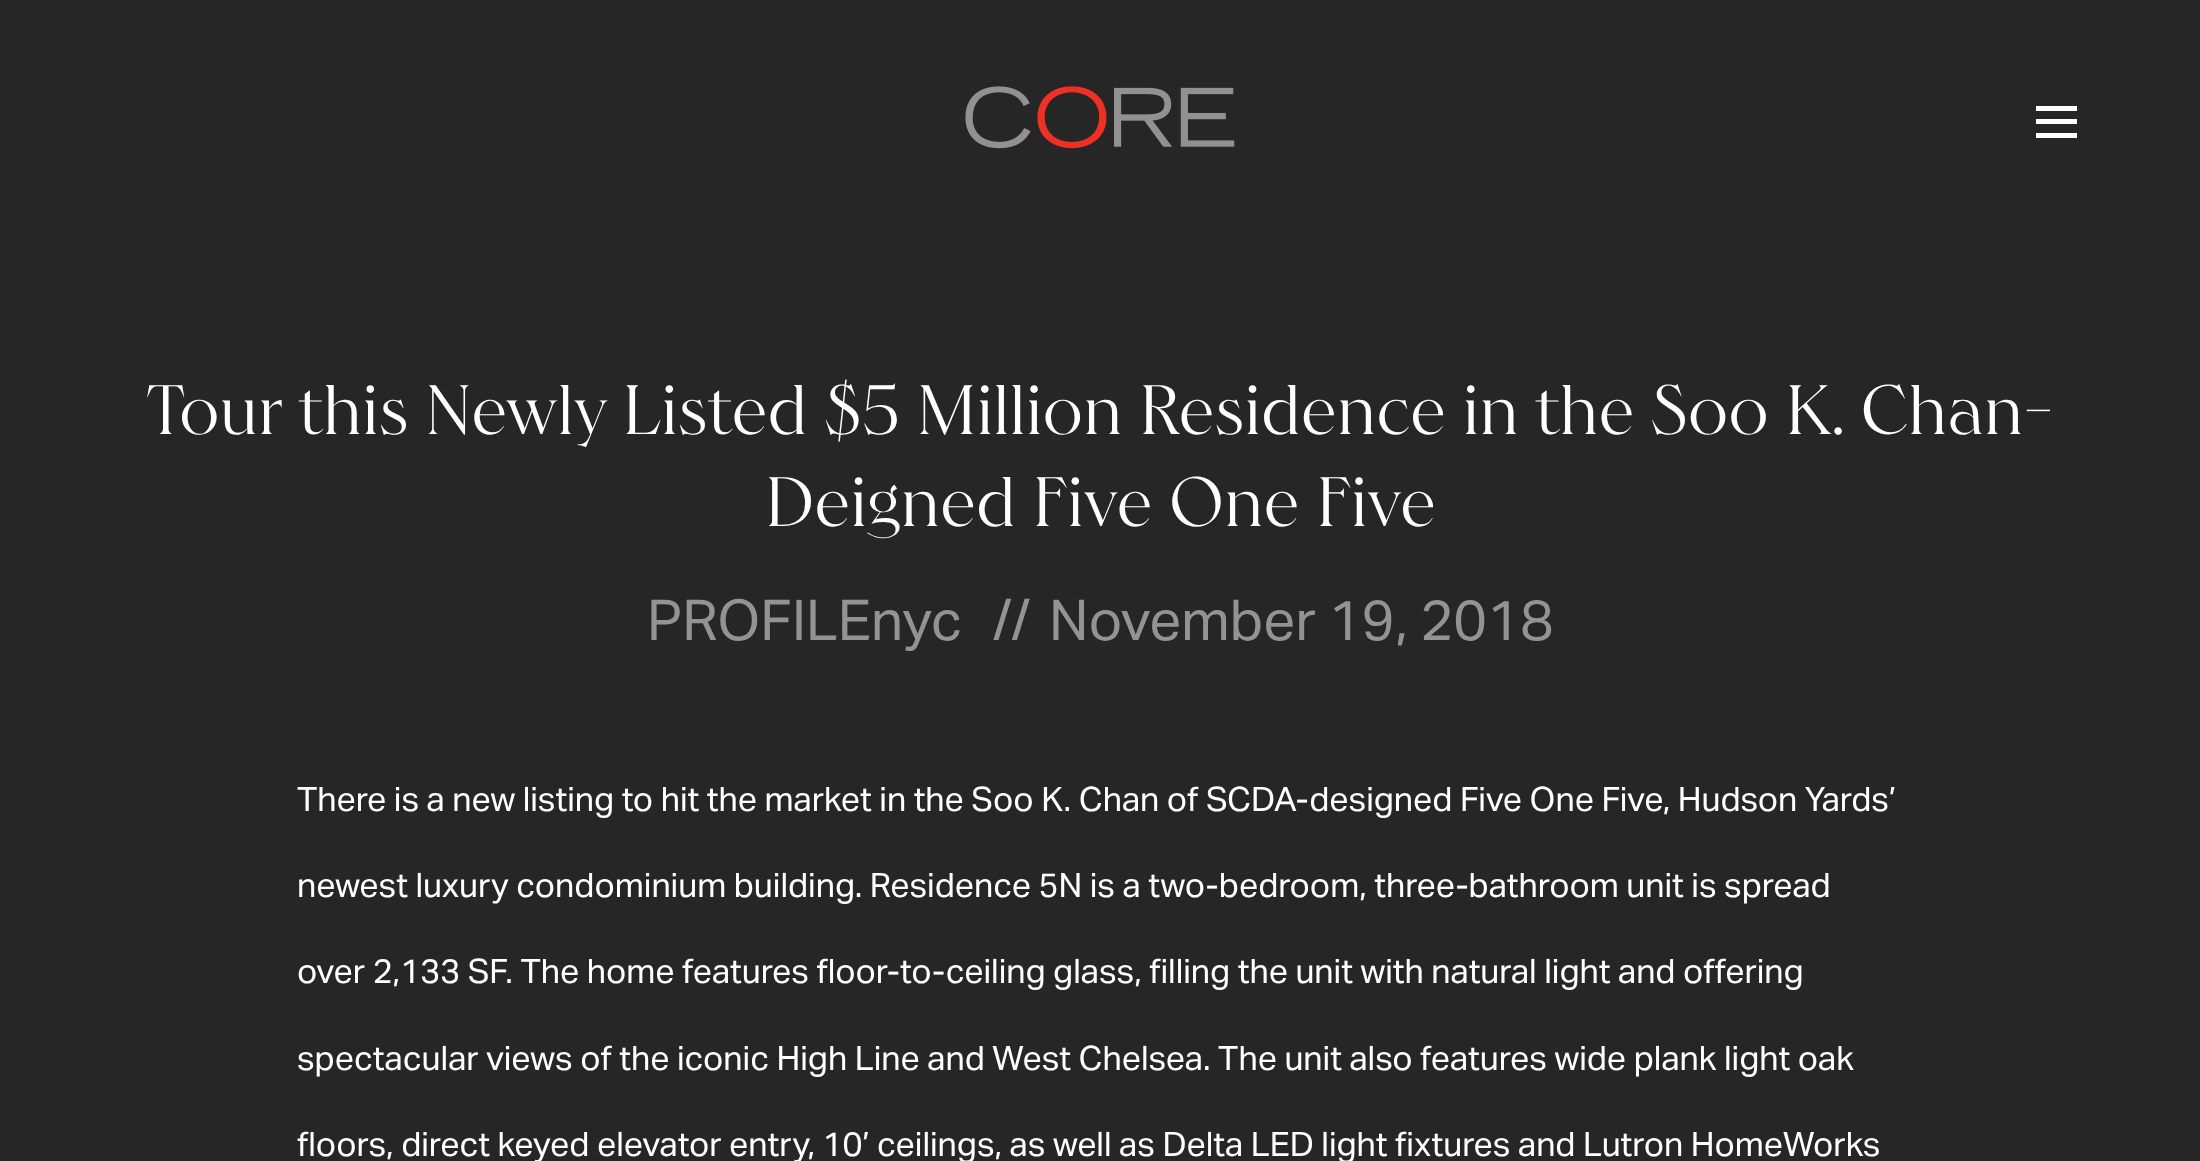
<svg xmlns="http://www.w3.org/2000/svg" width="2200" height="1161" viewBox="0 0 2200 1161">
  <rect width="100%" height="100%" fill="rgb(38,38,38)"/>
  <image x="965" y="86" width="270" height="63" href="pic1.png"/>
  <rect x="2036" y="106" width="41" height="5" fill="rgb(255,255,255)"/>
  <rect x="2036" y="119" width="41" height="5" fill="rgb(255,255,255)"/>
  <rect x="2036" y="133" width="41" height="5" fill="rgb(255,255,255)"/>
  <g font-family="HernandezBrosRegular" font-size="67.5" fill="rgb(255,255,255)">
    <text x="146" y="434">Tour this Newly Listed $5 Million Residence in the Soo K. Chan-</text>
    <text x="765" y="526">Deigned Five One Five</text>
  </g>
  <g font-family="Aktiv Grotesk" font-size="56.25" fill="rgb(147,147,147)">
    <text x="647" y="640">PROFILEnyc</text>
    <text x="993" y="640">//</text>
    <text x="1049" y="640">November 19, 2018</text>
  </g>
  <g font-family="Aktiv Grotesk" font-size="33.75" fill="rgb(255,255,255)">
    <text x="297" y="811">There is a new listing to hit the market in the Soo K. Chan of SCDA-designed Five One Five, Hudson Yards’</text>
    <text x="297" y="897">newest luxury condominium building. Residence 5N is a two-bedroom, three-bathroom unit is spread</text>
    <text x="297" y="983">over 2,133 SF. The home features floor-to-ceiling glass, filling the unit with natural light and offering</text>
    <text x="297" y="1070">spectacular views of the iconic High Line and West Chelsea. The unit also features wide plank light oak</text>
    <text x="297" y="1156">floors, direct keyed elevator entry, 10’ ceilings, as well as Delta LED light fixtures and Lutron HomeWorks</text>
  </g>
</svg>
